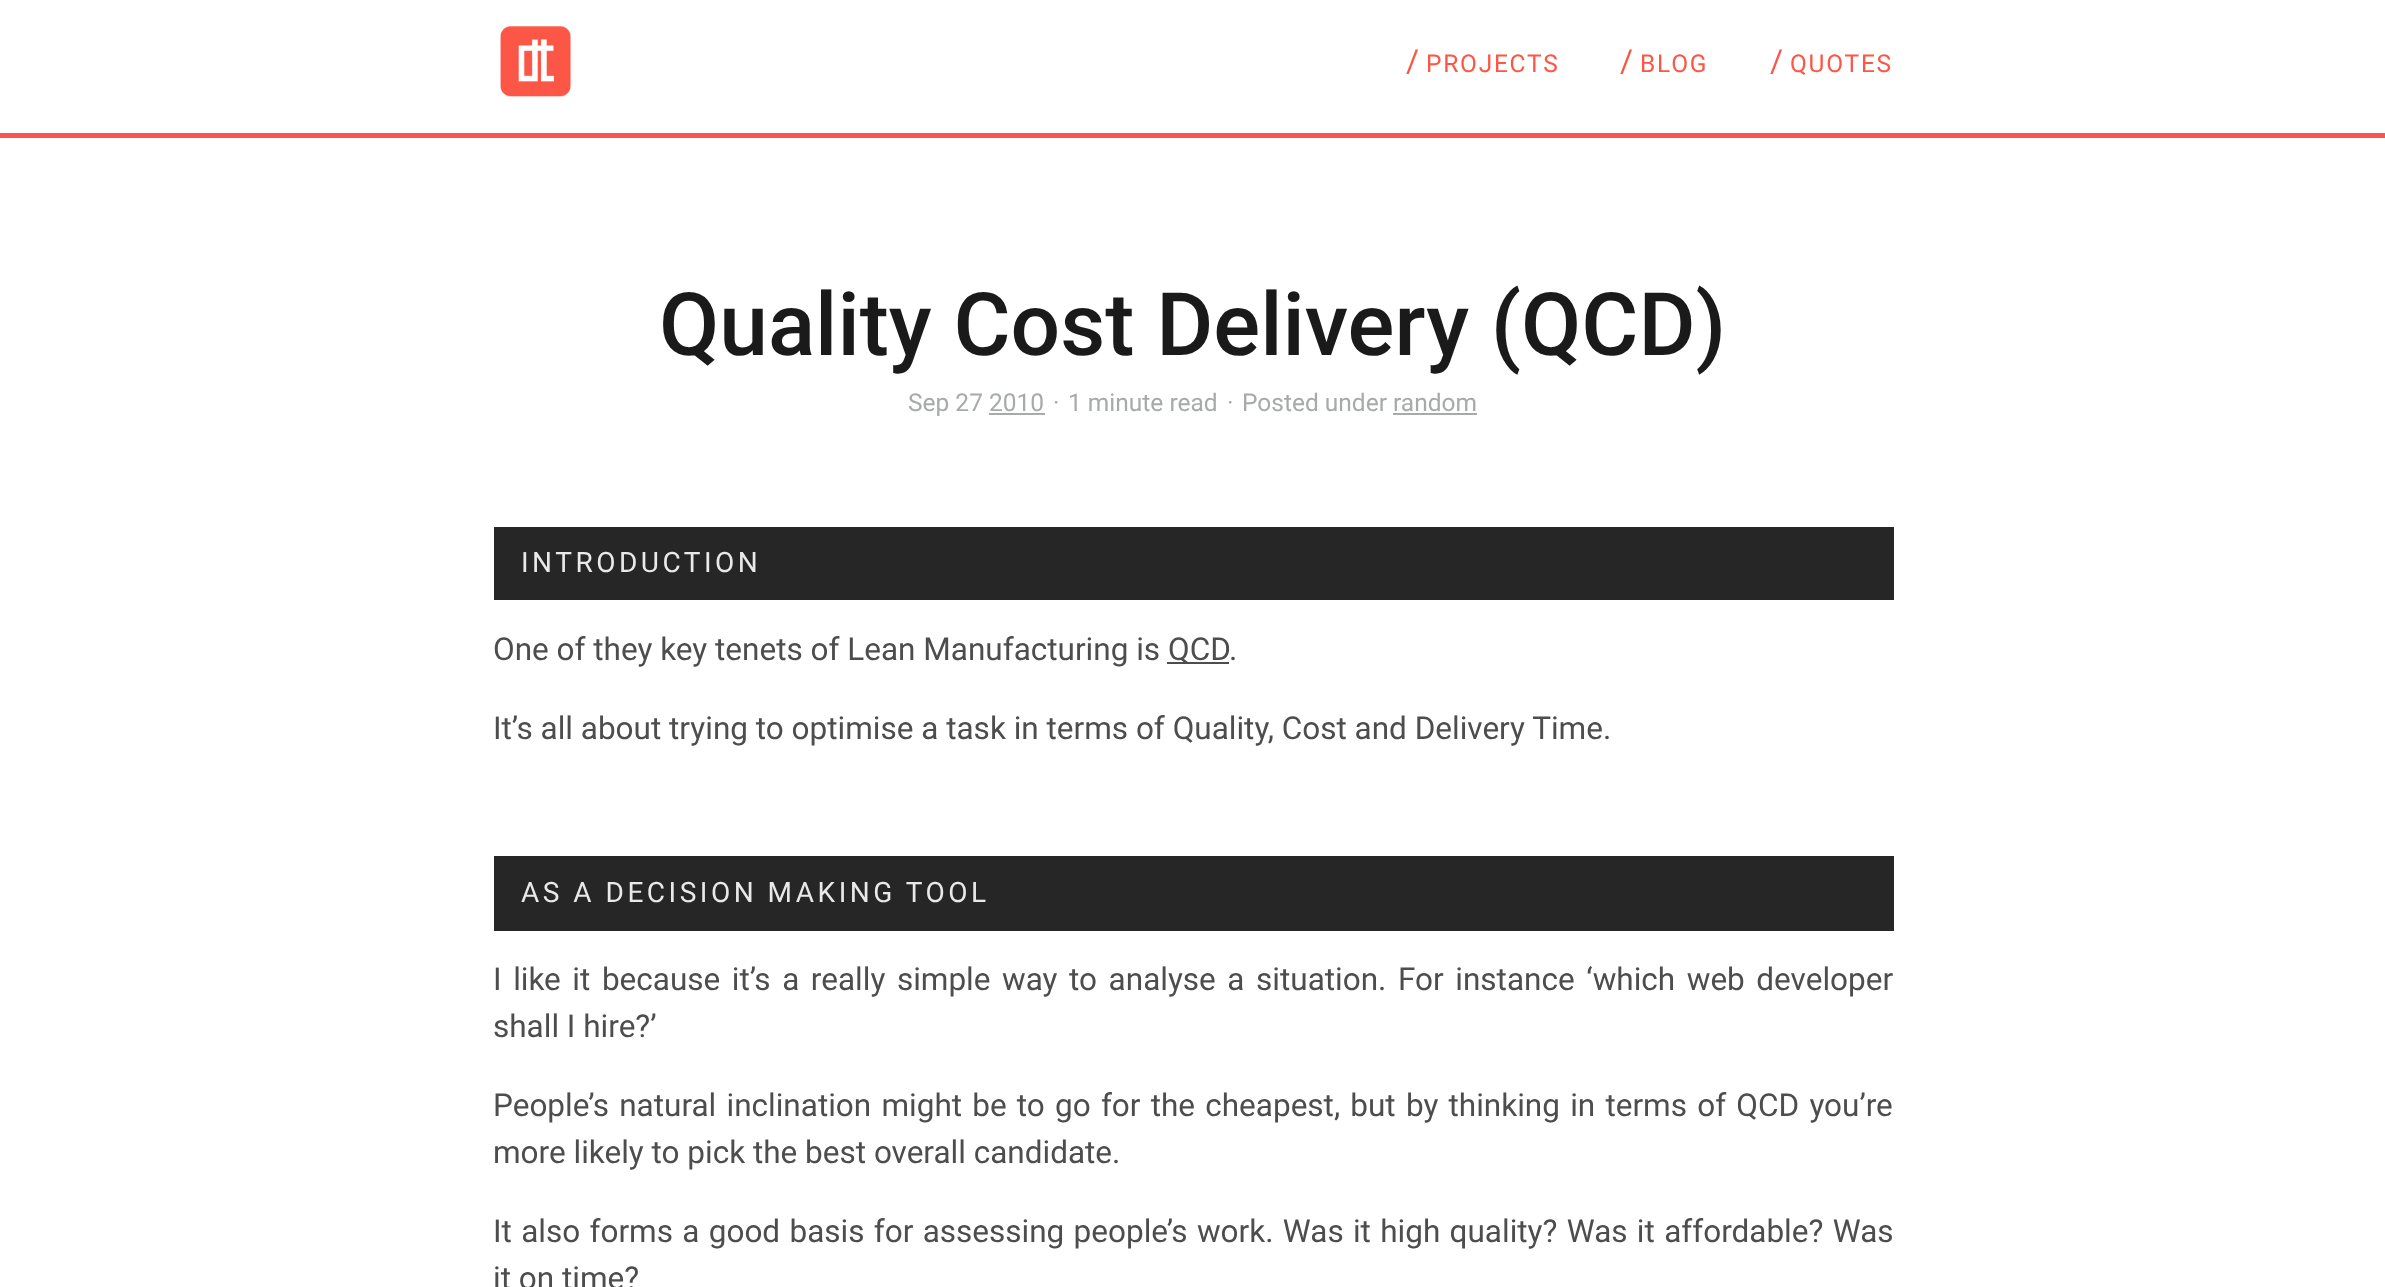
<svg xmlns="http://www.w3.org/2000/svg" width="2385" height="1287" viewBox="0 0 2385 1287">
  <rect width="100%" height="100%" fill="rgb(255,255,255)"/>
  <rect x="0" y="133" width="2385" height="5" fill="rgb(252,84,77)"/>
  <image x="500" y="26" width="71" height="71" href="pic1.png"/>
  <text x="1406" y="72" font-family="Roboto" font-size="31.5" fill="rgb(252,86,70)">/</text>
  <text x="1426" y="72" font-family="Roboto" font-size="24.5" letter-spacing="1.75" fill="rgb(252,86,70)">PROJECTS</text>
  <text x="1620" y="72" font-family="Roboto" font-size="31.5" fill="rgb(252,86,70)">/</text>
  <text x="1640" y="72" font-family="Roboto" font-size="24.5" letter-spacing="1.75" fill="rgb(252,86,70)">BLOG</text>
  <text x="1770" y="72" font-family="Roboto" font-size="31.5" fill="rgb(252,86,70)">/</text>
  <text x="1790" y="72" font-family="Roboto" font-size="24.5" letter-spacing="1.75" fill="rgb(252,86,70)">QUOTES</text>
  <text x="659" y="355" font-family="Roboto" font-size="87.5" font-weight="500" fill="rgb(26,26,26)">Quality Cost Delivery (QCD)</text>
  <text x="908" y="411" font-family="Roboto" font-size="24.5" fill="rgb(166,170,169)">Sep 27 2010</text>
  <rect x="989" y="413" width="56" height="2" fill="rgb(166,170,169)"/>
  <g font-family="Roboto" font-size="24.5" fill="rgb(166,170,169)">
    <text x="1053" y="411">·</text>
    <text x="1068" y="411">1 minute read</text>
    <text x="1227" y="411">·</text>
    <text x="1242" y="411">Posted under random</text>
  </g>
  <rect x="1393" y="413" width="84" height="2" fill="rgb(166,170,169)"/>
  <rect x="494" y="527" width="1400" height="73" fill="rgb(38,38,38)"/>
  <text x="521" y="572" font-family="Roboto" font-size="28" letter-spacing="3.5" fill="rgb(233,233,233)">INTRODUCTION</text>
  <text x="493" y="660" font-family="Roboto" font-size="31.5" fill="rgb(77,77,77)">One of they key tenets of Lean Manufacturing is</text>
  <rect x="1167" y="662" width="62" height="2" fill="rgb(77,77,77)"/>
  <g font-family="Roboto" font-size="31.5" fill="rgb(77,77,77)">
    <text x="1168" y="660">QCD</text>
    <text x="1229" y="660">.</text>
    <text x="493" y="739">It’s all about trying to optimise a task in terms of Quality, Cost and Delivery Time.</text>
  </g>
  <rect x="494" y="856" width="1400" height="75" fill="rgb(38,38,38)"/>
  <text x="521" y="902" font-family="Roboto" font-size="28" letter-spacing="3.5" fill="rgb(233,233,233)">AS A DECISION MAKING TOOL</text>
  <g font-family="Roboto" font-size="31.5" fill="rgb(77,77,77)">
    <text>
      <tspan x="493" y="990" word-spacing="3.75">I like it because it’s a really simple way to analyse a situation. For instance ‘which web developer</tspan>
      <tspan x="493" y="1037">shall I hire?’</tspan>
    </text>
    <text>
      <tspan x="493" y="1116" word-spacing="2.4">People’s natural inclination might be to go for the cheapest, but by thinking in terms of QCD you’re</tspan>
      <tspan x="493" y="1163">more likely to pick the best overall candidate.</tspan>
    </text>
    <text>
      <tspan x="493" y="1242" word-spacing="1.5">It also forms a good basis for assessing people’s work. Was it high quality? Was it affordable? Was</tspan>
      <tspan x="493" y="1289">it on time?</tspan>
    </text>
  </g>
</svg>
